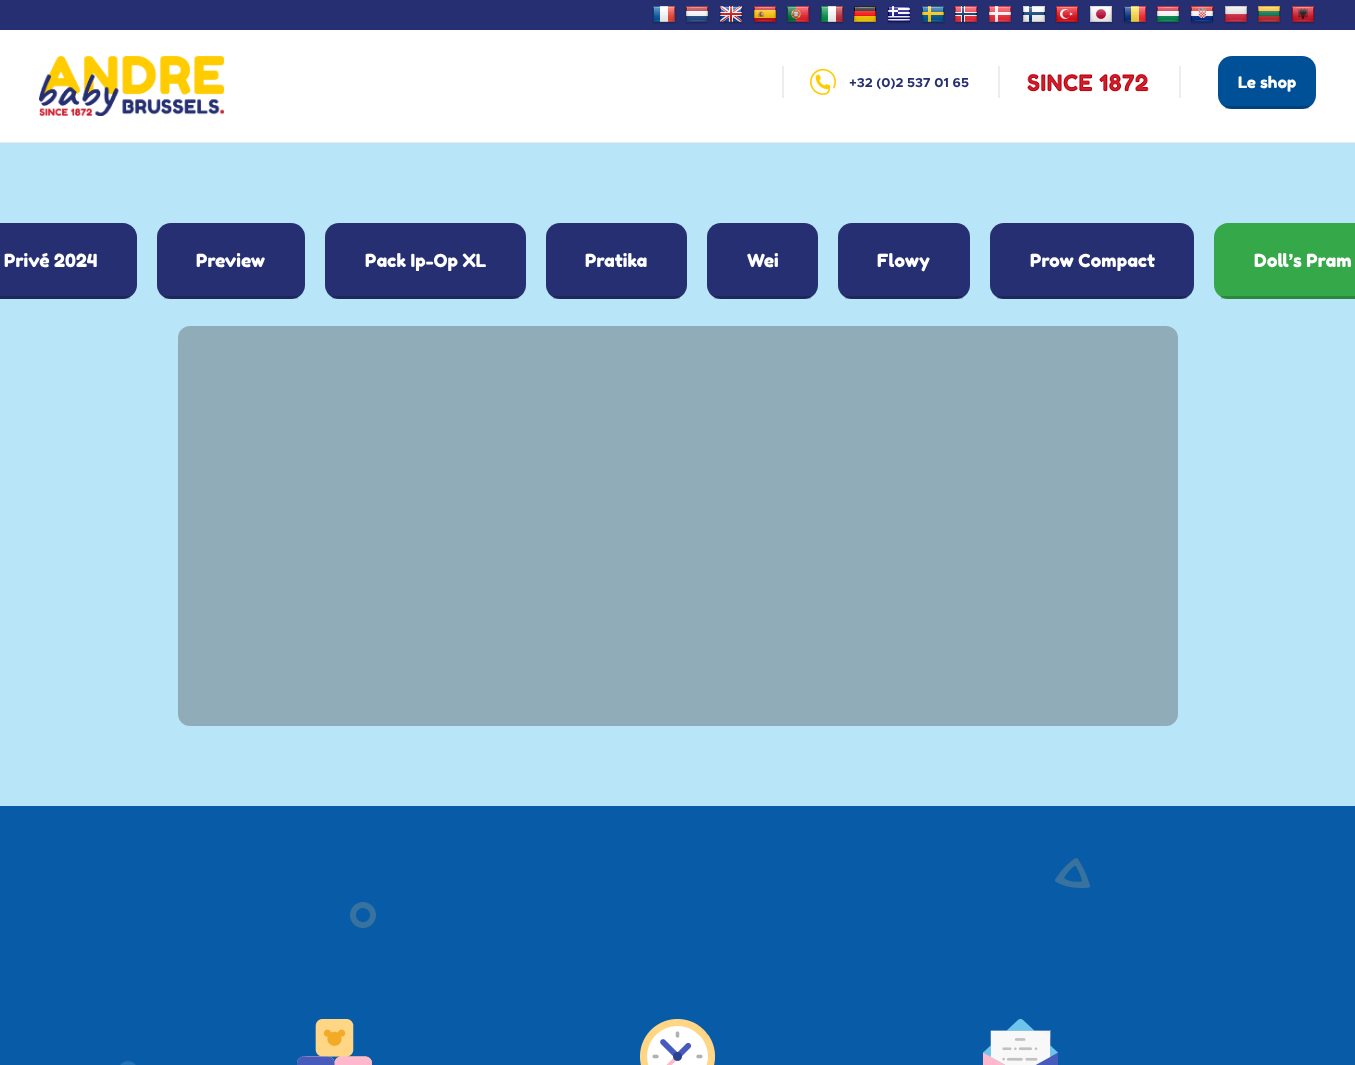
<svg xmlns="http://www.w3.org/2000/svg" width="1355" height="1065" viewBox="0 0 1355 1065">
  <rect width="100%" height="100%" fill="rgb(184,229,247)"/>
  <rect x="0" y="0" width="1355" height="30" fill="rgb(38,47,113)"/>
  <image x="652" y="6" width="24" height="18" href="pic1.png"/>
  <image x="685" y="6" width="24" height="18" href="pic2.png"/>
  <image x="719" y="6" width="24" height="18" href="pic3.png"/>
  <image x="753" y="6" width="24" height="18" href="pic4.png"/>
  <image x="786" y="6" width="24" height="18" href="pic5.png"/>
  <image x="820" y="6" width="24" height="18" href="pic6.png"/>
  <image x="853" y="6" width="24" height="18" href="pic7.png"/>
  <image x="887" y="6" width="24" height="18" href="pic8.png"/>
  <image x="921" y="6" width="24" height="18" href="pic9.png"/>
  <image x="954" y="6" width="24" height="18" href="pic10.png"/>
  <image x="988" y="6" width="24" height="18" href="pic11.png"/>
  <image x="1022" y="6" width="24" height="18" href="pic12.png"/>
  <image x="1055" y="6" width="24" height="18" href="pic13.png"/>
  <image x="1089" y="6" width="24" height="18" href="pic14.png"/>
  <image x="1123" y="6" width="24" height="18" href="pic15.png"/>
  <image x="1156" y="6" width="24" height="18" href="pic16.png"/>
  <image x="1190" y="6" width="24" height="18" href="pic17.png"/>
  <image x="1224" y="6" width="24" height="18" href="pic18.png"/>
  <image x="1257" y="6" width="24" height="18" href="pic19.png"/>
  <image x="1291" y="6" width="24" height="18" href="pic20.png"/>
  <rect x="0" y="30" width="1355" height="112" fill="rgb(255,255,255)"/>
  <rect x="0" y="142" width="1355" height="1" fill="rgb(234,234,234)"/>
  <image x="39" y="56" width="185" height="60" href="pic21.png"/>
  <rect x="782" y="66" width="2" height="32" fill="rgb(238,237,234)"/>
  <image x="810" y="68" width="26" height="27" href="pic22.png"/>
  <text x="849" y="87" font-family="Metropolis" font-size="13" font-weight="bold" fill="rgb(38,47,113)">+32 (0)2 537 01 65</text>
  <rect x="998" y="66" width="2" height="32" fill="rgb(238,237,234)"/>
  <image x="1027" y="73" width="122" height="19" href="pic23.png"/>
  <rect x="1179" y="66" width="2" height="32" fill="rgb(238,237,234)"/>
  <rect x="1218" y="56" width="98" height="53" rx="14" fill="rgb(0,80,151)"/>
  <rect x="1225" y="106" width="84" height="3" fill="rgba(0,0,0,0.18)"/>
  <text x="1238" y="88" font-family="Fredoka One" font-size="16" fill="rgb(255,255,255)">Le shop</text>
  <path d="M0 223H123C130.5 223 137 229.5 137 237V285C137 292.5 130.5 299 123 299H0Z" fill="rgb(38,47,113)"/>
  <rect x="0" y="296" width="130" height="3" fill="rgba(0,0,0,0.18)"/>
  <text x="4" y="267" font-family="Fredoka One" font-size="18" fill="rgb(255,255,255)">Privé 2024</text>
  <rect x="157" y="223" width="148" height="76" rx="14" fill="rgb(38,47,113)"/>
  <rect x="164" y="296" width="134" height="3" fill="rgba(0,0,0,0.18)"/>
  <text x="196" y="267" font-family="Fredoka One" font-size="18" fill="rgb(255,255,255)">Preview</text>
  <rect x="325" y="223" width="201" height="76" rx="14" fill="rgb(38,47,113)"/>
  <rect x="332" y="296" width="187" height="3" fill="rgba(0,0,0,0.18)"/>
  <text x="365" y="267" font-family="Fredoka One" font-size="18" fill="rgb(255,255,255)">Pack Ip-Op XL</text>
  <rect x="546" y="223" width="141" height="76" rx="14" fill="rgb(38,47,113)"/>
  <rect x="553" y="296" width="127" height="3" fill="rgba(0,0,0,0.18)"/>
  <text x="585" y="267" font-family="Fredoka One" font-size="18" fill="rgb(255,255,255)">Pratika</text>
  <rect x="707" y="223" width="111" height="76" rx="14" fill="rgb(38,47,113)"/>
  <rect x="714" y="296" width="97" height="3" fill="rgba(0,0,0,0.18)"/>
  <text x="747" y="267" font-family="Fredoka One" font-size="18" fill="rgb(255,255,255)">Wei</text>
  <rect x="838" y="223" width="132" height="76" rx="14" fill="rgb(38,47,113)"/>
  <rect x="845" y="296" width="118" height="3" fill="rgba(0,0,0,0.18)"/>
  <text x="877" y="267" font-family="Fredoka One" font-size="18" fill="rgb(255,255,255)">Flowy</text>
  <rect x="990" y="223" width="204" height="76" rx="14" fill="rgb(38,47,113)"/>
  <rect x="997" y="296" width="190" height="3" fill="rgba(0,0,0,0.18)"/>
  <text x="1030" y="267" font-family="Fredoka One" font-size="18" fill="rgb(255,255,255)">Prow Compact</text>
  <path d="M1228 223H1355V299H1228C1220.5 299 1214 292.5 1214 285V237C1214 229.5 1220.5 223 1228 223Z" fill="rgb(53,168,73)"/>
  <rect x="1221" y="296" width="134" height="3" fill="rgba(0,0,0,0.18)"/>
  <text x="1254" y="267" font-family="Fredoka One" font-size="18" fill="rgb(255,255,255)">Doll’s Pram</text>
  <rect x="178" y="326" width="1000" height="400" rx="12" fill="rgb(143,172,184)"/>
  <rect x="0" y="806" width="1355" height="259" fill="rgb(8,91,167)"/>
  <image x="120" y="858" width="970" height="207" href="pic24.png"/>
  <image x="297" y="1019" width="75" height="46" href="pic25.png"/>
  <image x="640" y="1019" width="75" height="46" href="pic26.png"/>
  <image x="983" y="1019" width="75" height="46" href="pic27.png"/>
</svg>
